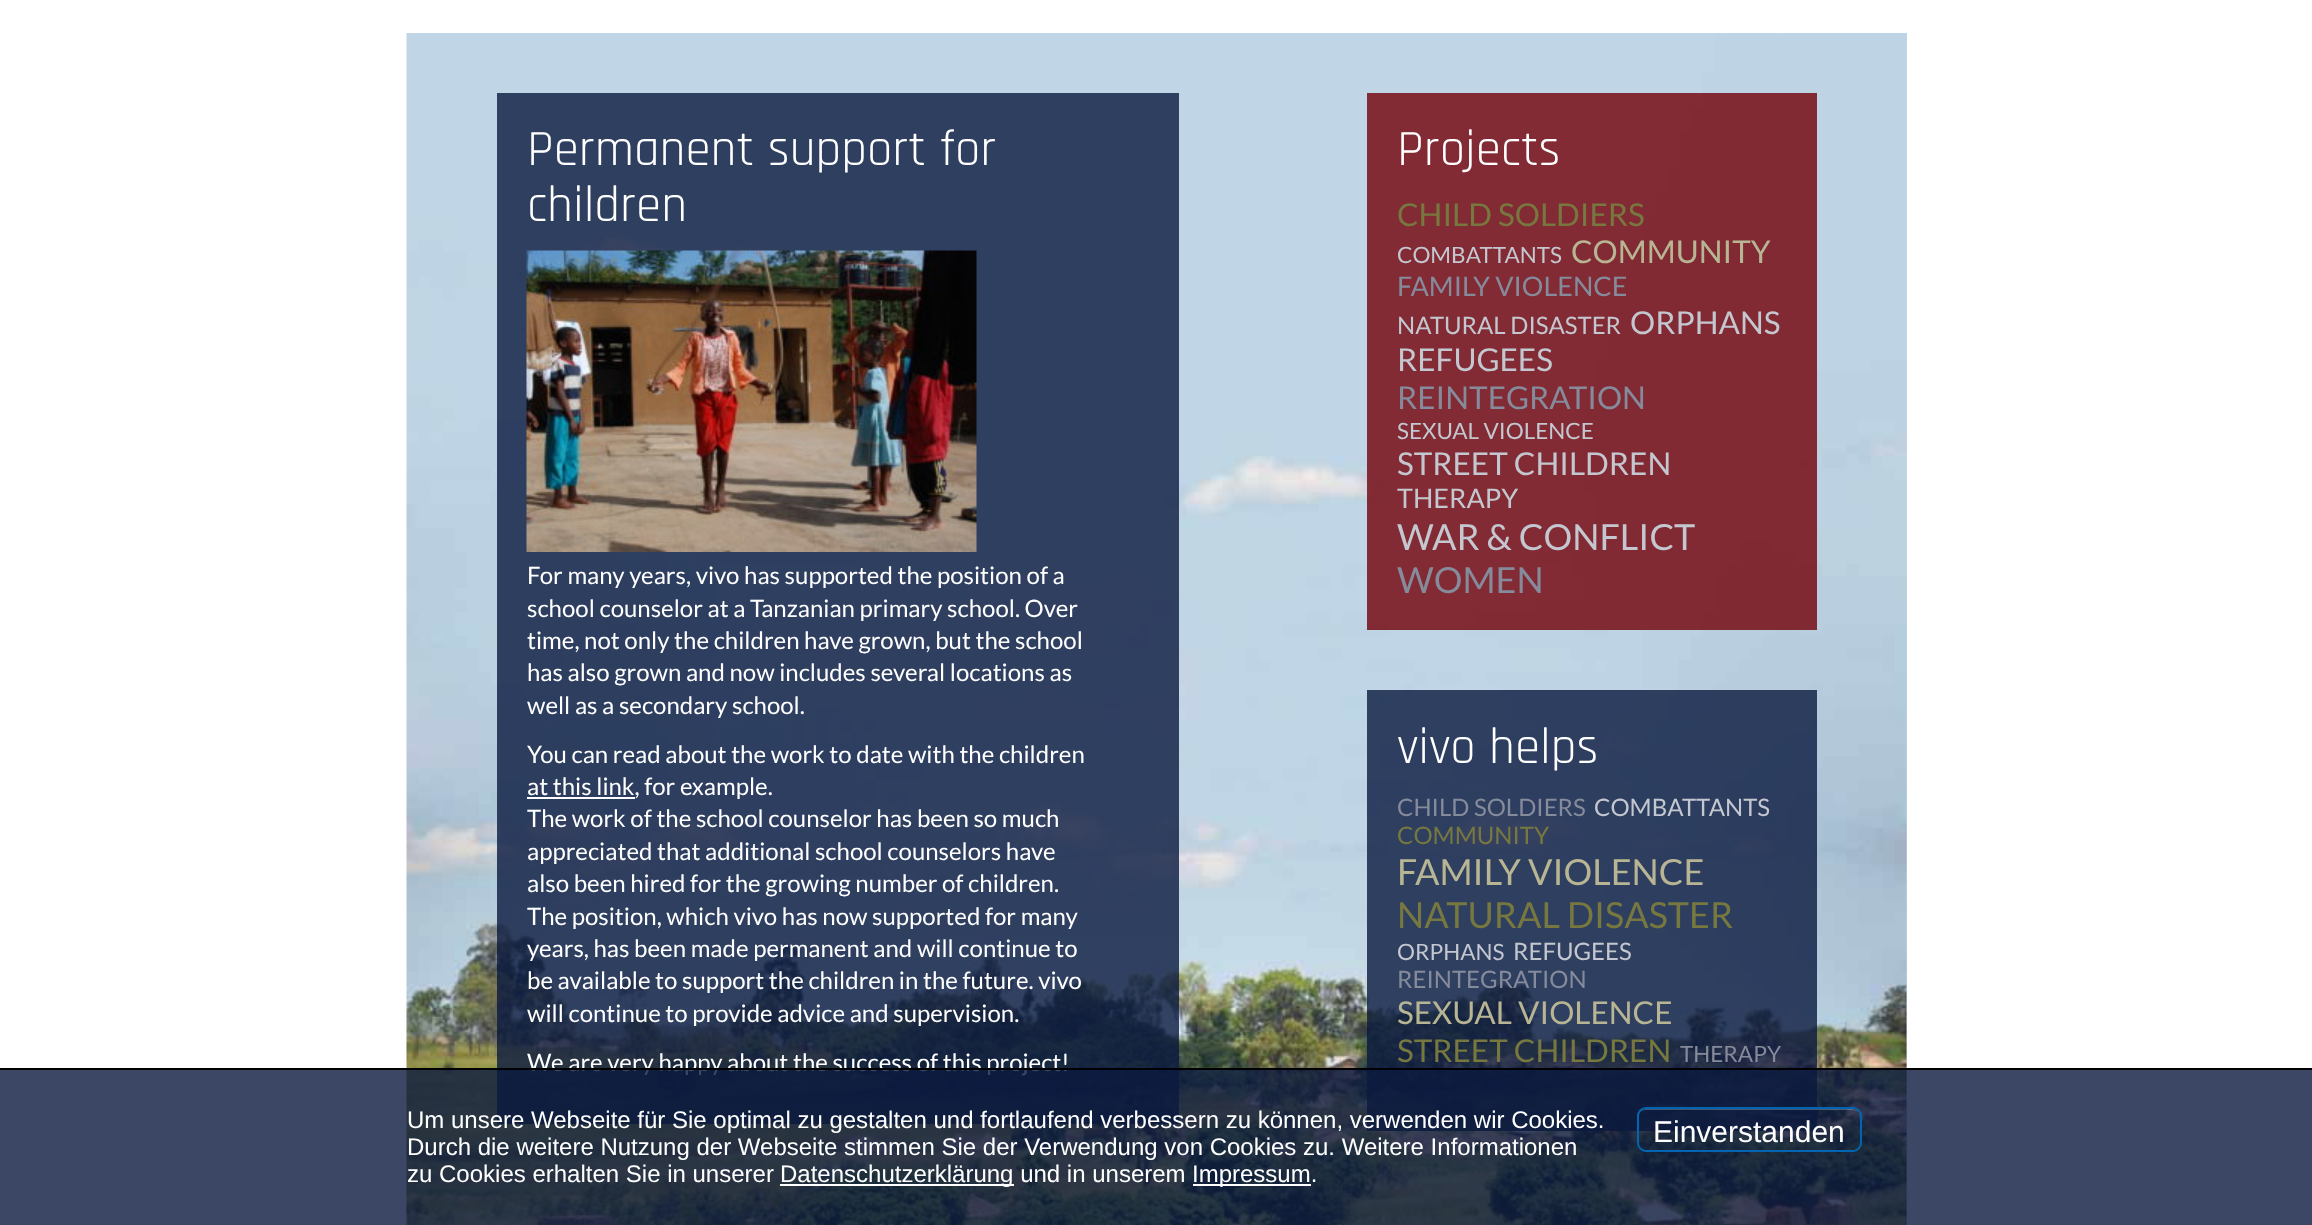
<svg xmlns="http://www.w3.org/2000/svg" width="2312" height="1225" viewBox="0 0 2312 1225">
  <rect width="100%" height="100%" fill="rgb(255,255,255)"/>
  <rect x="1906" y="33" width="1" height="1192" fill="rgb(192,213,230)"/>
  <image x="406" y="33" width="1501" height="1192" href="pic1.png"/>
  <rect x="497" y="93" width="682" height="1031" fill="rgba(10,25,62,0.8)"/>
  <g font-family="Rajdhani" font-size="51" fill="rgb(255,255,255)">
    <text>
      <tspan x="527" y="165">Permanent support for</tspan>
      <tspan x="527" y="221">children</tspan>
    </text>
  </g>
  <image x="526" y="250" width="451" height="302" href="pic2.png"/>
  <g font-family="Lato" font-size="24" fill="rgb(255,255,255)">
    <text>
      <tspan x="527" y="584">For many years, vivo has supported the position of a</tspan>
      <tspan x="527" y="617">school counselor at a Tanzanian primary school. Over</tspan>
      <tspan x="527" y="649">time, not only the children have grown, but the school</tspan>
      <tspan x="527" y="681">has also grown and now includes several locations as</tspan>
      <tspan x="527" y="714">well as a secondary school.</tspan>
    </text>
    <text x="527" y="763">You can read about the work to date with the children</text>
  </g>
  <rect x="527" y="797" width="108" height="2" fill="rgb(255,255,255)"/>
  <g font-family="Lato" font-size="24" fill="rgb(255,255,255)">
    <text>
      <tspan x="527" y="795">at this link, for example.</tspan>
      <tspan x="527" y="827">The work of the school counselor has been so much</tspan>
      <tspan x="527" y="860">appreciated that additional school counselors have</tspan>
      <tspan x="527" y="892">also been hired for the growing number of children.</tspan>
      <tspan x="527" y="925">The position, which vivo has now supported for many</tspan>
      <tspan x="527" y="957">years, has been made permanent and will continue to</tspan>
      <tspan x="527" y="989">be available to support the children in the future. vivo</tspan>
      <tspan x="527" y="1022">will continue to provide advice and supervision.</tspan>
    </text>
    <text x="527" y="1071">We are very happy about the success of this project!</text>
  </g>
  <rect x="1367" y="93" width="450" height="537" fill="rgba(114,0,8,0.8)"/>
  <text x="1397" y="165" font-family="Rajdhani" font-size="51" fill="rgb(255,255,255)">Projects</text>
  <text x="1397" y="226" font-family="Lato" font-size="31.5" fill="rgb(119,120,63)">CHILD SOLDIERS</text>
  <text x="1397" y="263" font-family="Lato" font-size="22.5" fill="rgb(196,199,207)">COMBATTANTS</text>
  <text x="1571" y="263" font-family="Lato" font-size="31.5" fill="rgb(184,181,148)">COMMUNITY</text>
  <text x="1397" y="296" font-family="Lato" font-size="27" fill="rgb(134,139,156)">FAMILY VIOLENCE</text>
  <text x="1397" y="334" font-family="Lato" font-size="24" fill="rgb(196,199,207)">NATURAL DISASTER</text>
  <g font-family="Lato" font-size="31.5" fill="rgb(196,199,207)">
    <text x="1630" y="334">ORPHANS</text>
    <text x="1397" y="371">REFUGEES</text>
  </g>
  <text x="1397" y="409" font-family="Lato" font-size="31.5" fill="rgb(134,139,156)">REINTEGRATION</text>
  <text x="1397" y="439" font-family="Lato" font-size="22.5" fill="rgb(196,199,207)">SEXUAL VIOLENCE</text>
  <text x="1397" y="475" font-family="Lato" font-size="31.5" fill="rgb(196,199,207)">STREET CHILDREN</text>
  <text x="1397" y="508" font-family="Lato" font-size="27" fill="rgb(196,199,207)">THERAPY</text>
  <text x="1397" y="550" font-family="Lato" font-size="36" fill="rgb(196,199,207)">WAR &amp; CONFLICT</text>
  <text x="1397" y="593" font-family="Lato" font-size="36" fill="rgb(134,139,156)">WOMEN</text>
  <rect x="1367" y="690" width="450" height="441" fill="rgba(10,25,62,0.8)"/>
  <text x="1397" y="763" font-family="Rajdhani" font-size="51" fill="rgb(255,255,255)">vivo helps</text>
  <text x="1397" y="816" font-family="Lato" font-size="24" fill="rgb(134,139,156)">CHILD SOLDIERS</text>
  <text x="1594" y="816" font-family="Lato" font-size="24" fill="rgb(196,199,207)">COMBATTANTS</text>
  <text x="1397" y="844" font-family="Lato" font-size="24" fill="rgb(119,120,63)">COMMUNITY</text>
  <text x="1397" y="885" font-family="Lato" font-size="36" fill="rgb(184,181,148)">FAMILY VIOLENCE</text>
  <text x="1397" y="928" font-family="Lato" font-size="36" fill="rgb(119,120,63)">NATURAL DISASTER</text>
  <text x="1397" y="960" font-family="Lato" font-size="22.5" fill="rgb(196,199,207)">ORPHANS</text>
  <text x="1513" y="960" font-family="Lato" font-size="24" fill="rgb(196,199,207)">REFUGEES</text>
  <text x="1397" y="988" font-family="Lato" font-size="24" fill="rgb(134,139,156)">REINTEGRATION</text>
  <text x="1397" y="1024" font-family="Lato" font-size="31.5" fill="rgb(184,181,148)">SEXUAL VIOLENCE</text>
  <text x="1397" y="1062" font-family="Lato" font-size="31.5" fill="rgb(119,120,63)">STREET CHILDREN</text>
  <text x="1680" y="1062" font-family="Lato" font-size="22.5" fill="rgb(134,139,156)">THERAPY</text>
  <rect x="0" y="1070" width="2312" height="155" fill="rgba(10,25,62,0.8)"/>
  <rect x="0" y="1068" width="2312" height="2" fill="rgb(0,0,0)"/>
  <g font-family="Liberation Sans" font-size="24" fill="rgb(255,255,255)">
    <text>
      <tspan x="407" y="1128">Um unsere Webseite für Sie optimal zu gestalten und fortlaufend verbessern zu können, verwenden wir Cookies.</tspan>
      <tspan x="407" y="1155">Durch die weitere Nutzung der Webseite stimmen Sie der Verwendung von Cookies zu. Weitere Informationen</tspan>
      <tspan x="407" y="1182">zu Cookies erhalten Sie in unserer</tspan>
    </text>
  </g>
  <rect x="780" y="1184" width="234" height="2" fill="rgb(255,255,255)"/>
  <text x="780" y="1182" font-family="Liberation Sans" font-size="24" fill="rgb(255,255,255)">Datenschutzerklärung und in unserem</text>
  <rect x="1193" y="1184" width="118" height="2" fill="rgb(255,255,255)"/>
  <text x="1192" y="1182" font-family="Liberation Sans" font-size="24" fill="rgb(255,255,255)">Impressum.</text>
  <path d="M1646 1110H1852C1857 1110 1860 1113 1860 1118V1117C1860 1113 1856 1109 1852 1109H1646C1642 1109 1638 1113 1638 1117V1118C1638 1113 1641 1110 1646 1110Z" fill="rgba(255,255,255,0.25)"/>
  <rect x="1638" y="1108" width="223" height="43" rx="8" fill="none" stroke="rgb(0,102,179)" stroke-width="2"/>
  <text x="1653" y="1142" font-family="Liberation Sans" font-size="30" fill="rgb(255,255,255)">Einverstanden</text>
</svg>
